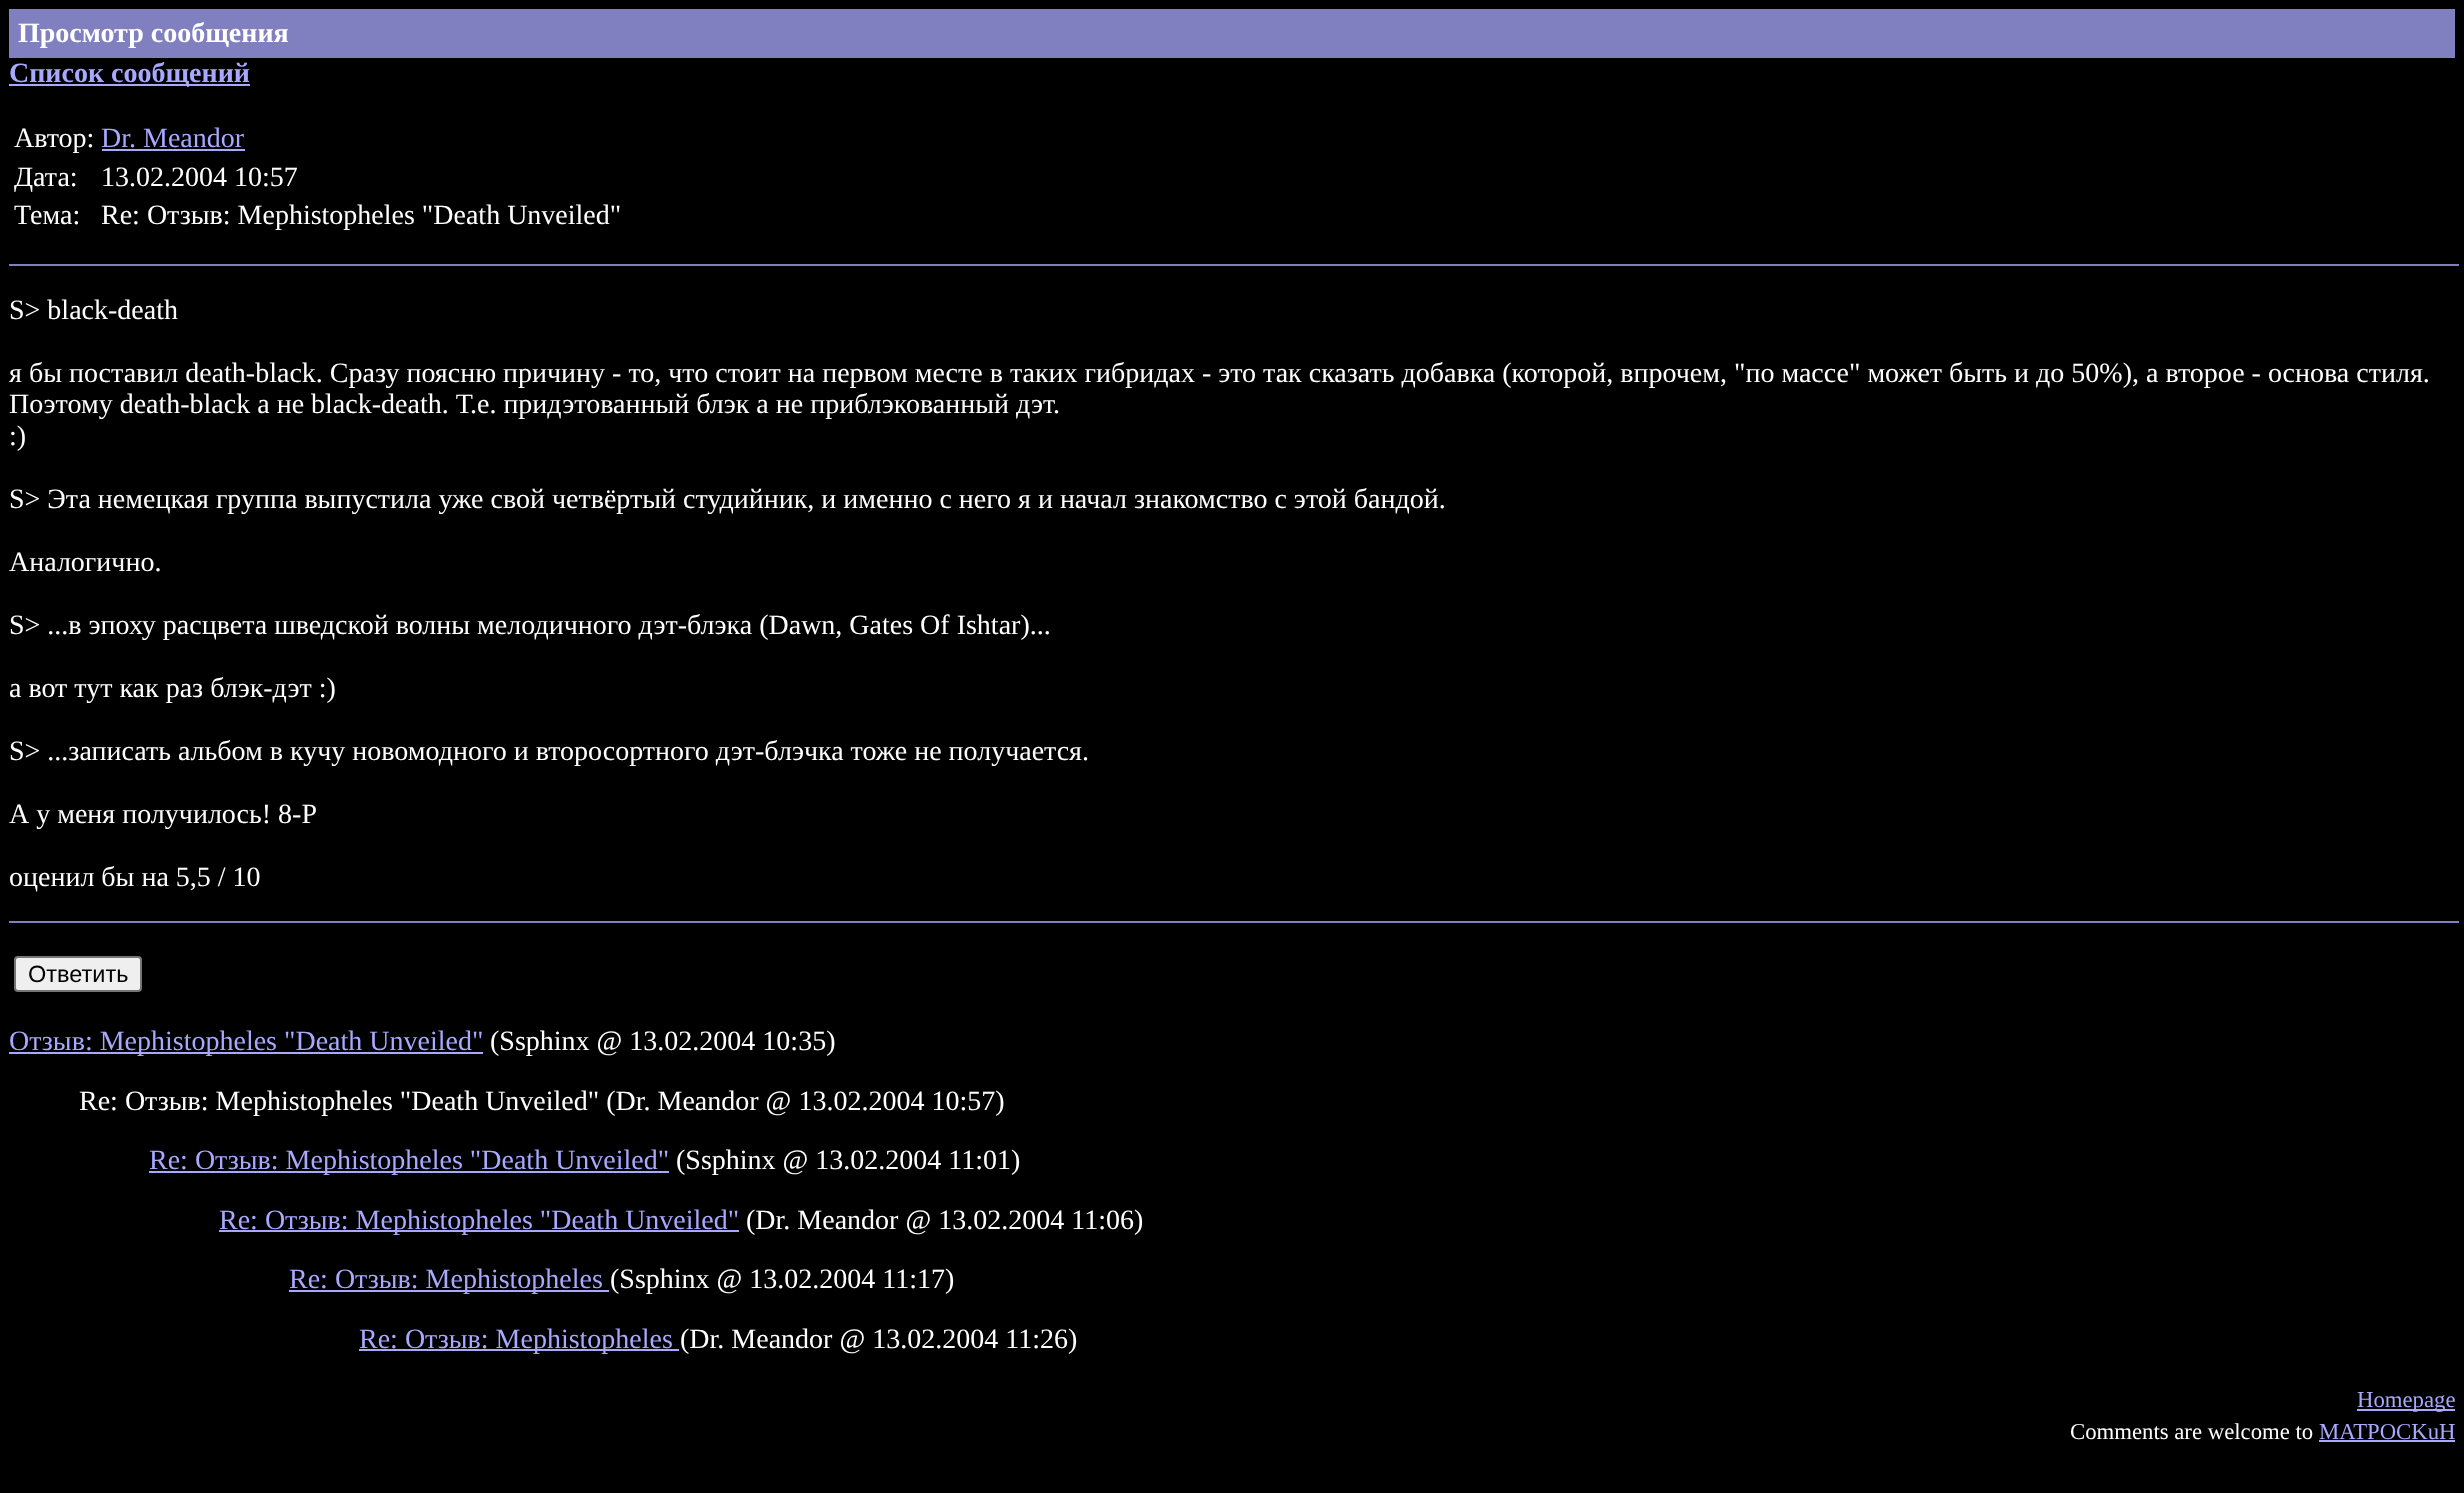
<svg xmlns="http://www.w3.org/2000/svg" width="2464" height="1493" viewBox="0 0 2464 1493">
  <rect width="100%" height="100%" fill="rgb(0,0,0)"/>
  <rect x="9" y="9" width="2446" height="49" fill="rgb(128,128,192)"/>
  <text x="18" y="42" font-family="Liberation Serif" font-size="28" font-weight="bold" fill="rgb(255,255,255)">Просмотр сообщения</text>
  <rect x="9" y="84" width="241" height="2" fill="rgb(168,168,255)"/>
  <text x="9" y="82" font-family="Liberation Serif" font-size="28" font-weight="bold" fill="rgb(168,168,255)">Список сообщений</text>
  <text x="14" y="147" font-family="Liberation Serif" font-size="28" fill="rgb(255,255,255)">Автор:</text>
  <text x="101" y="147" font-family="Liberation Serif" font-size="28" fill="rgb(168,168,255)">Dr. Meandor</text>
  <rect x="102" y="149" width="143" height="2" fill="rgb(168,168,255)"/>
  <g font-family="Liberation Serif" font-size="28" fill="rgb(255,255,255)">
    <text x="14" y="186">Дата:</text>
    <text x="101" y="186">13.02.2004 10:57</text>
    <text x="14" y="224">Тема:</text>
    <text x="101" y="224">Re: Отзыв: Mephistopheles "Death Unveiled"</text>
  </g>
  <rect x="9" y="264" width="2450" height="2" fill="rgb(128,128,192)"/>
  <g font-family="Liberation Serif" font-size="28" fill="rgb(255,255,255)">
    <text x="9" y="319">S&gt; black-death</text>
    <text>
      <tspan x="9" y="382">я бы поставил death-black. Сразу поясню причину - то, что стоит на первом месте в таких гибридах - это так сказать добавка (которой, впрочем, "по массе" может быть и до 50%), а второе - основа стиля.</tspan>
      <tspan x="9" y="413">Поэтому death-black a не black-death. Т.е. придэтованный блэк а не приблэкованный дэт.</tspan>
      <tspan x="9" y="445">:)</tspan>
    </text>
    <text x="9" y="508">S&gt; Эта немецкая группа выпустила уже свой четвёртый студийник, и именно с него я и начал знакомство с этой бандой.</text>
    <text x="9" y="571">Аналогично.</text>
    <text x="9" y="634">S&gt; ...в эпоху расцвета шведской волны мелодичного дэт-блэка (Dawn, Gates Of Ishtar)...</text>
    <text x="9" y="697">а вот тут как раз блэк-дэт :)</text>
    <text x="9" y="760">S&gt; ...записать альбом в кучу новомодного и второсортного дэт-блэчка тоже не получается.</text>
    <text x="9" y="823">А у меня получилось! 8-Р</text>
    <text x="9" y="886">оценил бы на 5,5 / 10</text>
  </g>
  <rect x="9" y="921" width="2450" height="2" fill="rgb(128,128,192)"/>
  <rect x="15" y="957" width="126" height="34" rx="3" fill="rgb(239,239,239)" stroke="rgb(118,118,118)" stroke-width="2"/>
  <text x="28" y="982" font-family="Liberation Sans" font-size="23.5" fill="rgb(0,0,0)">Ответить</text>
  <rect x="9" y="1052" width="474" height="2" fill="rgb(168,168,255)"/>
  <text x="9" y="1050" font-family="Liberation Serif" font-size="28" fill="rgb(168,168,255)">Отзыв: Mephistopheles "Death Unveiled"</text>
  <g font-family="Liberation Serif" font-size="28" fill="rgb(255,255,255)">
    <text x="490" y="1050">(Ssphinx @ 13.02.2004 10:35)</text>
    <text x="79" y="1110">Re: Отзыв: Mephistopheles "Death Unveiled" (Dr. Meandor @ 13.02.2004 10:57)</text>
  </g>
  <rect x="149" y="1171" width="520" height="2" fill="rgb(168,168,255)"/>
  <text x="149" y="1169" font-family="Liberation Serif" font-size="28" fill="rgb(168,168,255)">Re: Отзыв: Mephistopheles "Death Unveiled"</text>
  <text x="676" y="1169" font-family="Liberation Serif" font-size="28" fill="rgb(255,255,255)">(Ssphinx @ 13.02.2004 11:01)</text>
  <rect x="219" y="1230" width="520" height="2" fill="rgb(168,168,255)"/>
  <text x="219" y="1229" font-family="Liberation Serif" font-size="28" fill="rgb(168,168,255)">Re: Отзыв: Mephistopheles "Death Unveiled"</text>
  <text x="746" y="1229" font-family="Liberation Serif" font-size="28" fill="rgb(255,255,255)">(Dr. Meandor @ 13.02.2004 11:06)</text>
  <rect x="289" y="1290" width="320" height="2" fill="rgb(168,168,255)"/>
  <text x="289" y="1288" font-family="Liberation Serif" font-size="28" fill="rgb(168,168,255)">Re: Отзыв: Mephistopheles</text>
  <text x="610" y="1288" font-family="Liberation Serif" font-size="28" fill="rgb(255,255,255)">(Ssphinx @ 13.02.2004 11:17)</text>
  <rect x="359" y="1349" width="320" height="2" fill="rgb(168,168,255)"/>
  <text x="359" y="1348" font-family="Liberation Serif" font-size="28" fill="rgb(168,168,255)">Re: Отзыв: Mephistopheles</text>
  <text x="680" y="1348" font-family="Liberation Serif" font-size="28" fill="rgb(255,255,255)">(Dr. Meandor @ 13.02.2004 11:26)</text>
  <rect x="2357" y="1409" width="98" height="2" fill="rgb(168,168,255)"/>
  <text x="2357" y="1407" font-family="Liberation Serif" font-size="22.75" fill="rgb(168,168,255)">Homepage</text>
  <text x="2070" y="1439" font-family="Liberation Serif" font-size="22.75" fill="rgb(255,255,255)">Comments are welcome to</text>
  <text x="2319" y="1439" font-family="Liberation Serif" font-size="22.75" fill="rgb(168,168,255)">MATPOCKuH</text>
  <rect x="2319" y="1440" width="136" height="2" fill="rgb(168,168,255)"/>
</svg>
